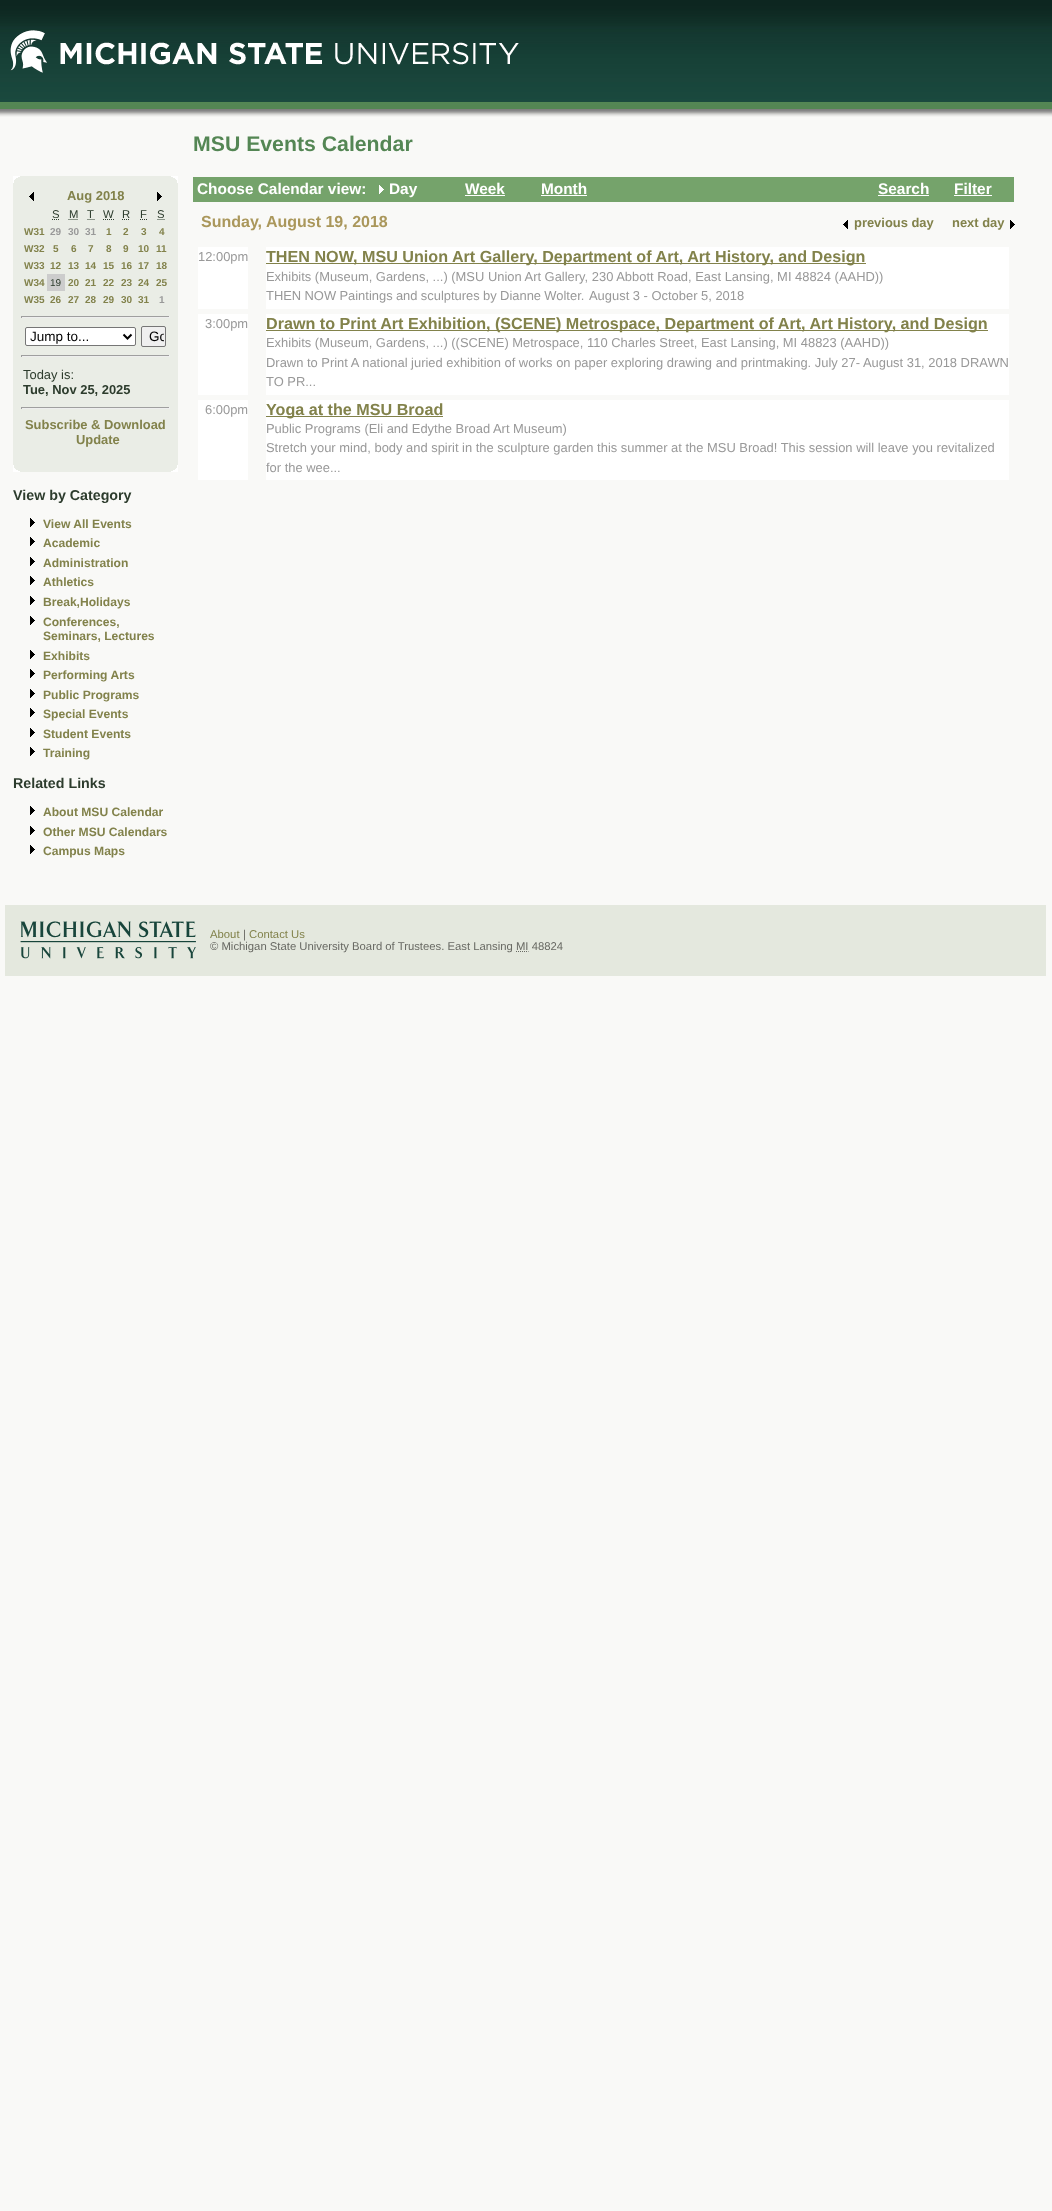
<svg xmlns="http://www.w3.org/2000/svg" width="1052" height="2211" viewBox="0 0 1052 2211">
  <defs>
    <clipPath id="clip1"><rect x="143" y="328" width="21" height="17"/></clipPath>
  </defs>
  <rect width="100%" height="100%" fill="rgb(249,249,247)"/>
  <image x="0" y="0" width="1052" height="117" href="pic1.png"/>
  <image x="10" y="30" width="509" height="43" href="pic2.png"/>
  <rect x="13" y="176" width="8" height="296" fill="rgb(234,237,230)"/>
  <image x="13" y="176" width="7" height="7" href="pic3.png"/>
  <rect x="21" y="176" width="149" height="296" fill="rgb(234,237,230)"/>
  <rect x="170" y="176" width="8" height="296" fill="rgb(234,237,230)"/>
  <image x="171" y="176" width="7" height="7" href="pic4.png"/>
  <image x="29" y="192" width="5" height="9" href="pic5.png"/>
  <text x="67" y="200" font-family="Liberation Sans" font-size="12.93" font-weight="bold" fill="rgb(130,130,75)">Aug 2018</text>
  <image x="157" y="192" width="5" height="9" href="pic6.png"/>
  <text x="52" y="218" font-family="Liberation Sans" font-size="11.3" fill="rgb(45,60,45)">S</text>
  <path d="M52 219.5H59.5" fill="none" stroke="rgb(45,60,45)" stroke-dasharray="1 1"/>
  <text x="69" y="218" font-family="Liberation Sans" font-size="11.3" fill="rgb(45,60,45)">M</text>
  <path d="M68.5 219.5H78" fill="none" stroke="rgb(45,60,45)" stroke-dasharray="1 1"/>
  <text x="87" y="218" font-family="Liberation Sans" font-size="11.3" fill="rgb(45,60,45)">T</text>
  <path d="M87.5 219.5H88.5M89.5 219.5H90.5M91.5 219.5H92.5M93.5 219.5H94.5" fill="none" stroke="rgb(45,60,45)"/>
  <text x="103" y="218" font-family="Liberation Sans" font-size="11.3" fill="rgb(45,60,45)">W</text>
  <path d="M103 219.5H114" fill="none" stroke="rgb(45,60,45)" stroke-dasharray="1 1"/>
  <text x="122" y="218" font-family="Liberation Sans" font-size="11.3" fill="rgb(45,60,45)">R</text>
  <path d="M122 219.5H130" fill="none" stroke="rgb(45,60,45)" stroke-dasharray="1 1"/>
  <text x="140" y="218" font-family="Liberation Sans" font-size="11.3" fill="rgb(45,60,45)">F</text>
  <path d="M140 219.5H141M142 219.5H143M144 219.5H145M146 219.5H147" fill="none" stroke="rgb(45,60,45)"/>
  <text x="157" y="218" font-family="Liberation Sans" font-size="11.3" fill="rgb(45,60,45)">S</text>
  <path d="M157.5 219.5H165" fill="none" stroke="rgb(45,60,45)" stroke-dasharray="1 1"/>
  <text x="24" y="235" font-family="Liberation Sans" font-size="10" font-weight="bold" fill="rgb(130,130,75)">W31</text>
  <g font-family="Liberation Sans" font-size="10" font-weight="bold" fill="rgb(153,153,153)">
    <text x="50" y="235">29</text>
    <text x="68" y="235">30</text>
    <text x="85" y="235">31</text>
  </g>
  <g font-family="Liberation Sans" font-size="10" font-weight="bold" fill="rgb(130,130,75)">
    <text x="106" y="235">1</text>
    <text x="123" y="235">2</text>
    <text x="141" y="235">3</text>
    <text x="159" y="235">4</text>
    <text x="24" y="252">W32</text>
    <text x="53" y="252">5</text>
    <text x="71" y="252">6</text>
    <text x="88" y="252">7</text>
    <text x="106" y="252">8</text>
    <text x="123" y="252">9</text>
    <text x="138" y="252">10</text>
    <text x="156" y="252">11</text>
    <text x="24" y="269">W33</text>
    <text x="50" y="269">12</text>
    <text x="68" y="269">13</text>
    <text x="85" y="269">14</text>
    <text x="103" y="269">15</text>
    <text x="121" y="269">16</text>
    <text x="138" y="269">17</text>
    <text x="156" y="269">18</text>
    <text x="24" y="286">W34</text>
  </g>
  <rect x="47" y="274" width="18" height="17" fill="rgb(204,204,204)"/>
  <text x="50" y="286" font-family="Liberation Sans" font-size="10" fill="rgb(45,60,45)">19</text>
  <g font-family="Liberation Sans" font-size="10" font-weight="bold" fill="rgb(130,130,75)">
    <text x="68" y="286">20</text>
    <text x="85" y="286">21</text>
    <text x="103" y="286">22</text>
    <text x="121" y="286">23</text>
    <text x="138" y="286">24</text>
    <text x="156" y="286">25</text>
    <text x="24" y="303">W35</text>
    <text x="50" y="303">26</text>
    <text x="68" y="303">27</text>
    <text x="85" y="303">28</text>
    <text x="103" y="303">29</text>
    <text x="121" y="303">30</text>
    <text x="138" y="303">31</text>
  </g>
  <text x="159" y="303" font-family="Liberation Sans" font-size="10" font-weight="bold" fill="rgb(153,153,153)">1</text>
  <rect x="21" y="316" width="149" height="1" fill="rgb(159,159,159)"/>
  <rect x="169" y="316" width="1" height="2" fill="rgb(238,238,238)"/>
  <rect x="21" y="317" width="149" height="1" fill="rgb(238,238,238)"/>
  <rect x="21" y="316" width="1" height="2" fill="rgb(159,159,159)"/>
  <rect x="25.5" y="327.5" width="110" height="18" rx="1.5" fill="rgb(255,255,255)" stroke="rgb(118,118,118)"/>
  <path d="M123.5 334.5L127.5 338.5L131.5 334.5" fill="none" stroke="rgb(0,0,0)" stroke-width="2"/>
  <text x="30" y="341" font-family="Liberation Sans" font-size="13.5" fill="rgb(0,0,0)">Jump to...</text>
  <rect x="141.5" y="326.5" width="24" height="20" rx="1.5" fill="rgb(239,239,239)" stroke="rgb(118,118,118)"/>
  <g clip-path="url(#clip1)">
    <text x="149" y="341" font-family="Liberation Sans" font-size="13.5" fill="rgb(0,0,0)">Go</text>
  </g>
  <rect x="21" y="355" width="149" height="1" fill="rgb(159,159,159)"/>
  <rect x="169" y="355" width="1" height="2" fill="rgb(238,238,238)"/>
  <rect x="21" y="356" width="149" height="1" fill="rgb(238,238,238)"/>
  <rect x="21" y="355" width="1" height="2" fill="rgb(159,159,159)"/>
  <text x="23" y="379" font-family="Liberation Sans" font-size="12.93" fill="rgb(45,60,45)">Today is:</text>
  <text x="23" y="394" font-family="Liberation Sans" font-size="12.93" font-weight="bold" fill="rgb(45,60,45)">Tue, Nov 25, 2025</text>
  <rect x="21" y="407" width="149" height="1" fill="rgb(159,159,159)"/>
  <rect x="169" y="407" width="1" height="2" fill="rgb(238,238,238)"/>
  <rect x="21" y="408" width="149" height="1" fill="rgb(238,238,238)"/>
  <rect x="21" y="407" width="1" height="2" fill="rgb(159,159,159)"/>
  <g font-family="Liberation Sans" font-size="12.93" font-weight="bold" fill="rgb(130,130,75)">
    <text x="25" y="429">Subscribe &amp; Download</text>
    <text x="76" y="444">Update</text>
  </g>
  <image x="13" y="465" width="7" height="7" href="pic7.png"/>
  <image x="171" y="465" width="7" height="7" href="pic8.png"/>
  <text x="13" y="500" font-family="Liberation Sans" font-size="14.25" font-weight="bold" fill="rgb(45,60,45)">View by Category</text>
  <image x="30" y="518" width="5" height="9" href="pic9.png"/>
  <text x="43" y="528" font-family="Liberation Sans" font-size="12.1" font-weight="bold" fill="rgb(130,130,75)">View All Events</text>
  <image x="30" y="537" width="5" height="9" href="pic9.png"/>
  <text x="43" y="547" font-family="Liberation Sans" font-size="12.1" font-weight="bold" fill="rgb(130,130,75)">Academic</text>
  <image x="30" y="557" width="5" height="9" href="pic9.png"/>
  <text x="43" y="567" font-family="Liberation Sans" font-size="12.1" font-weight="bold" fill="rgb(130,130,75)">Administration</text>
  <image x="30" y="576" width="5" height="9" href="pic9.png"/>
  <text x="43" y="586" font-family="Liberation Sans" font-size="12.1" font-weight="bold" fill="rgb(130,130,75)">Athletics</text>
  <image x="30" y="596" width="5" height="9" href="pic9.png"/>
  <text x="43" y="606" font-family="Liberation Sans" font-size="12.1" font-weight="bold" fill="rgb(130,130,75)">Break,Holidays</text>
  <image x="30" y="616" width="5" height="9" href="pic9.png"/>
  <g font-family="Liberation Sans" font-size="12.1" font-weight="bold" fill="rgb(130,130,75)">
    <text>
      <tspan x="43" y="626">Conferences,</tspan>
      <tspan x="43" y="640">Seminars, Lectures</tspan>
    </text>
  </g>
  <image x="30" y="650" width="5" height="9" href="pic9.png"/>
  <text x="43" y="660" font-family="Liberation Sans" font-size="12.1" font-weight="bold" fill="rgb(130,130,75)">Exhibits</text>
  <image x="30" y="669" width="5" height="9" href="pic9.png"/>
  <text x="43" y="679" font-family="Liberation Sans" font-size="12.1" font-weight="bold" fill="rgb(130,130,75)">Performing Arts</text>
  <image x="30" y="689" width="5" height="9" href="pic9.png"/>
  <text x="43" y="699" font-family="Liberation Sans" font-size="12.1" font-weight="bold" fill="rgb(130,130,75)">Public Programs</text>
  <image x="30" y="708" width="5" height="9" href="pic9.png"/>
  <text x="43" y="718" font-family="Liberation Sans" font-size="12.1" font-weight="bold" fill="rgb(130,130,75)">Special Events</text>
  <image x="30" y="728" width="5" height="9" href="pic9.png"/>
  <text x="43" y="738" font-family="Liberation Sans" font-size="12.1" font-weight="bold" fill="rgb(130,130,75)">Student Events</text>
  <image x="30" y="747" width="5" height="9" href="pic9.png"/>
  <text x="43" y="757" font-family="Liberation Sans" font-size="12.1" font-weight="bold" fill="rgb(130,130,75)">Training</text>
  <text x="13" y="788" font-family="Liberation Sans" font-size="14.25" font-weight="bold" fill="rgb(45,60,45)">Related Links</text>
  <image x="30" y="806" width="5" height="9" href="pic9.png"/>
  <text x="43" y="816" font-family="Liberation Sans" font-size="12.1" font-weight="bold" fill="rgb(130,130,75)">About MSU Calendar</text>
  <image x="30" y="826" width="5" height="9" href="pic9.png"/>
  <text x="43" y="836" font-family="Liberation Sans" font-size="12.1" font-weight="bold" fill="rgb(130,130,75)">Other MSU Calendars</text>
  <image x="30" y="845" width="5" height="9" href="pic9.png"/>
  <text x="43" y="855" font-family="Liberation Sans" font-size="12.1" font-weight="bold" fill="rgb(130,130,75)">Campus Maps</text>
  <text x="193" y="151" font-family="Liberation Sans" font-size="21.25" font-weight="bold" fill="rgb(84,134,84)">MSU Events Calendar</text>
  <rect x="193" y="177" width="821" height="25" fill="rgb(117,163,107)"/>
  <text x="197" y="194" font-family="Liberation Sans" font-size="15.4" font-weight="bold" fill="rgb(255,255,255)">Choose Calendar view:</text>
  <image x="379" y="185" width="5" height="9" href="pic10.png"/>
  <g font-family="Liberation Sans" font-size="15.4" font-weight="bold" fill="rgb(255,255,255)">
    <text x="389" y="194">Day</text>
    <text x="465" y="194">Week</text>
  </g>
  <rect x="465" y="195" width="40" height="1" fill="rgb(255,255,255)"/>
  <text x="541" y="194" font-family="Liberation Sans" font-size="15.4" font-weight="bold" fill="rgb(255,255,255)">Month</text>
  <rect x="541" y="195" width="46" height="1" fill="rgb(255,255,255)"/>
  <text x="878" y="194" font-family="Liberation Sans" font-size="15.4" font-weight="bold" fill="rgb(255,255,255)">Search</text>
  <rect x="878" y="195" width="51" height="1" fill="rgb(255,255,255)"/>
  <text x="954" y="194" font-family="Liberation Sans" font-size="15.4" font-weight="bold" fill="rgb(255,255,255)">Filter</text>
  <rect x="954" y="195" width="38" height="1" fill="rgb(255,255,255)"/>
  <text x="201" y="227" font-family="Liberation Sans" font-size="16" font-weight="bold" fill="rgb(170,151,91)">Sunday, August 19, 2018</text>
  <image x="843" y="220" width="5" height="9" href="pic11.png"/>
  <g font-family="Liberation Sans" font-size="12.93" font-weight="bold" fill="rgb(130,130,75)">
    <text x="854" y="227">previous day</text>
    <text x="952" y="227">next day</text>
  </g>
  <image x="1010" y="220" width="5" height="9" href="pic9.png"/>
  <rect x="198" y="247" width="50" height="62" fill="rgb(255,255,255)"/>
  <text x="198" y="261" font-family="Liberation Sans" font-size="12.93" fill="rgb(153,153,153)">12:00pm</text>
  <rect x="266" y="247" width="743" height="62" fill="rgb(255,255,255)"/>
  <rect x="266" y="263" width="600" height="1" fill="rgb(130,130,75)"/>
  <text x="266" y="262" font-family="Liberation Sans" font-size="16.15" font-weight="bold" fill="rgb(130,130,75)">THEN NOW, MSU Union Art Gallery, Department of Art, Art History, and Design</text>
  <g font-family="Liberation Sans" font-size="12.93" fill="rgb(153,153,153)">
    <text>
      <tspan x="266" y="281">Exhibits (Museum, Gardens, ...) (MSU Union Art Gallery, 230 Abbott Road, East Lansing, MI 48824 (AAHD))</tspan>
      <tspan x="266" y="300" word-spacing="-0.25">THEN NOW Paintings and sculptures by Dianne Wolter.</tspan>
    </text>
    <text x="589" y="300">August 3 - October 5, 2018</text>
  </g>
  <rect x="198" y="314" width="50" height="81" fill="rgb(255,255,255)"/>
  <text x="205" y="328" font-family="Liberation Sans" font-size="12.93" fill="rgb(153,153,153)">3:00pm</text>
  <rect x="266" y="314" width="743" height="81" fill="rgb(255,255,255)"/>
  <rect x="266" y="330" width="722" height="1" fill="rgb(130,130,75)"/>
  <text x="266" y="329" font-family="Liberation Sans" font-size="16.15" font-weight="bold" fill="rgb(130,130,75)">Drawn to Print Art Exhibition, (SCENE) Metrospace, Department of Art, Art History, and Design</text>
  <g font-family="Liberation Sans" font-size="12.93" fill="rgb(153,153,153)">
    <text>
      <tspan x="266" y="347">Exhibits (Museum, Gardens, ...) ((SCENE) Metrospace, 110 Charles Street, East Lansing, MI 48823 (AAHD))</tspan>
      <tspan x="266" y="367">Drawn to Print A national juried exhibition of works on paper exploring drawing and printmaking. July 27- August 31, 2018 DRAWN</tspan>
      <tspan x="266" y="386">TO PR...</tspan>
    </text>
  </g>
  <rect x="198" y="400" width="50" height="80" fill="rgb(255,255,255)"/>
  <text x="205" y="414" font-family="Liberation Sans" font-size="12.93" fill="rgb(153,153,153)">6:00pm</text>
  <rect x="266" y="400" width="743" height="80" fill="rgb(255,255,255)"/>
  <rect x="266" y="416" width="177" height="1" fill="rgb(130,130,75)"/>
  <text x="266" y="415" font-family="Liberation Sans" font-size="16.15" font-weight="bold" fill="rgb(130,130,75)">Yoga at the MSU Broad</text>
  <g font-family="Liberation Sans" font-size="12.93" fill="rgb(153,153,153)">
    <text>
      <tspan x="266" y="433">Public Programs (Eli and Edythe Broad Art Museum)</tspan>
      <tspan x="266" y="452">Stretch your mind, body and spirit in the sculpture garden this summer at the MSU Broad! This session will leave you revitalized</tspan>
      <tspan x="266" y="472">for the wee...</tspan>
    </text>
  </g>
  <rect x="5" y="905" width="1041" height="71" fill="rgb(228,232,222)"/>
  <image x="20" y="921" width="176" height="38" href="pic12.png"/>
  <text x="210" y="938" font-family="Liberation Sans" font-size="11.3" fill="rgb(130,130,75)">About</text>
  <text x="243" y="938" font-family="Liberation Sans" font-size="11.3" fill="rgb(104,105,99)">|</text>
  <text x="249" y="938" font-family="Liberation Sans" font-size="11.3" fill="rgb(130,130,75)">Contact Us</text>
  <text x="210" y="950" font-family="Liberation Sans" font-size="11.3" fill="rgb(104,105,99)">© Michigan State University Board of Trustees. East Lansing MI 48824</text>
  <path d="M516 951.5H528.5" fill="none" stroke="rgb(104,105,99)" stroke-dasharray="1 1"/>
</svg>
